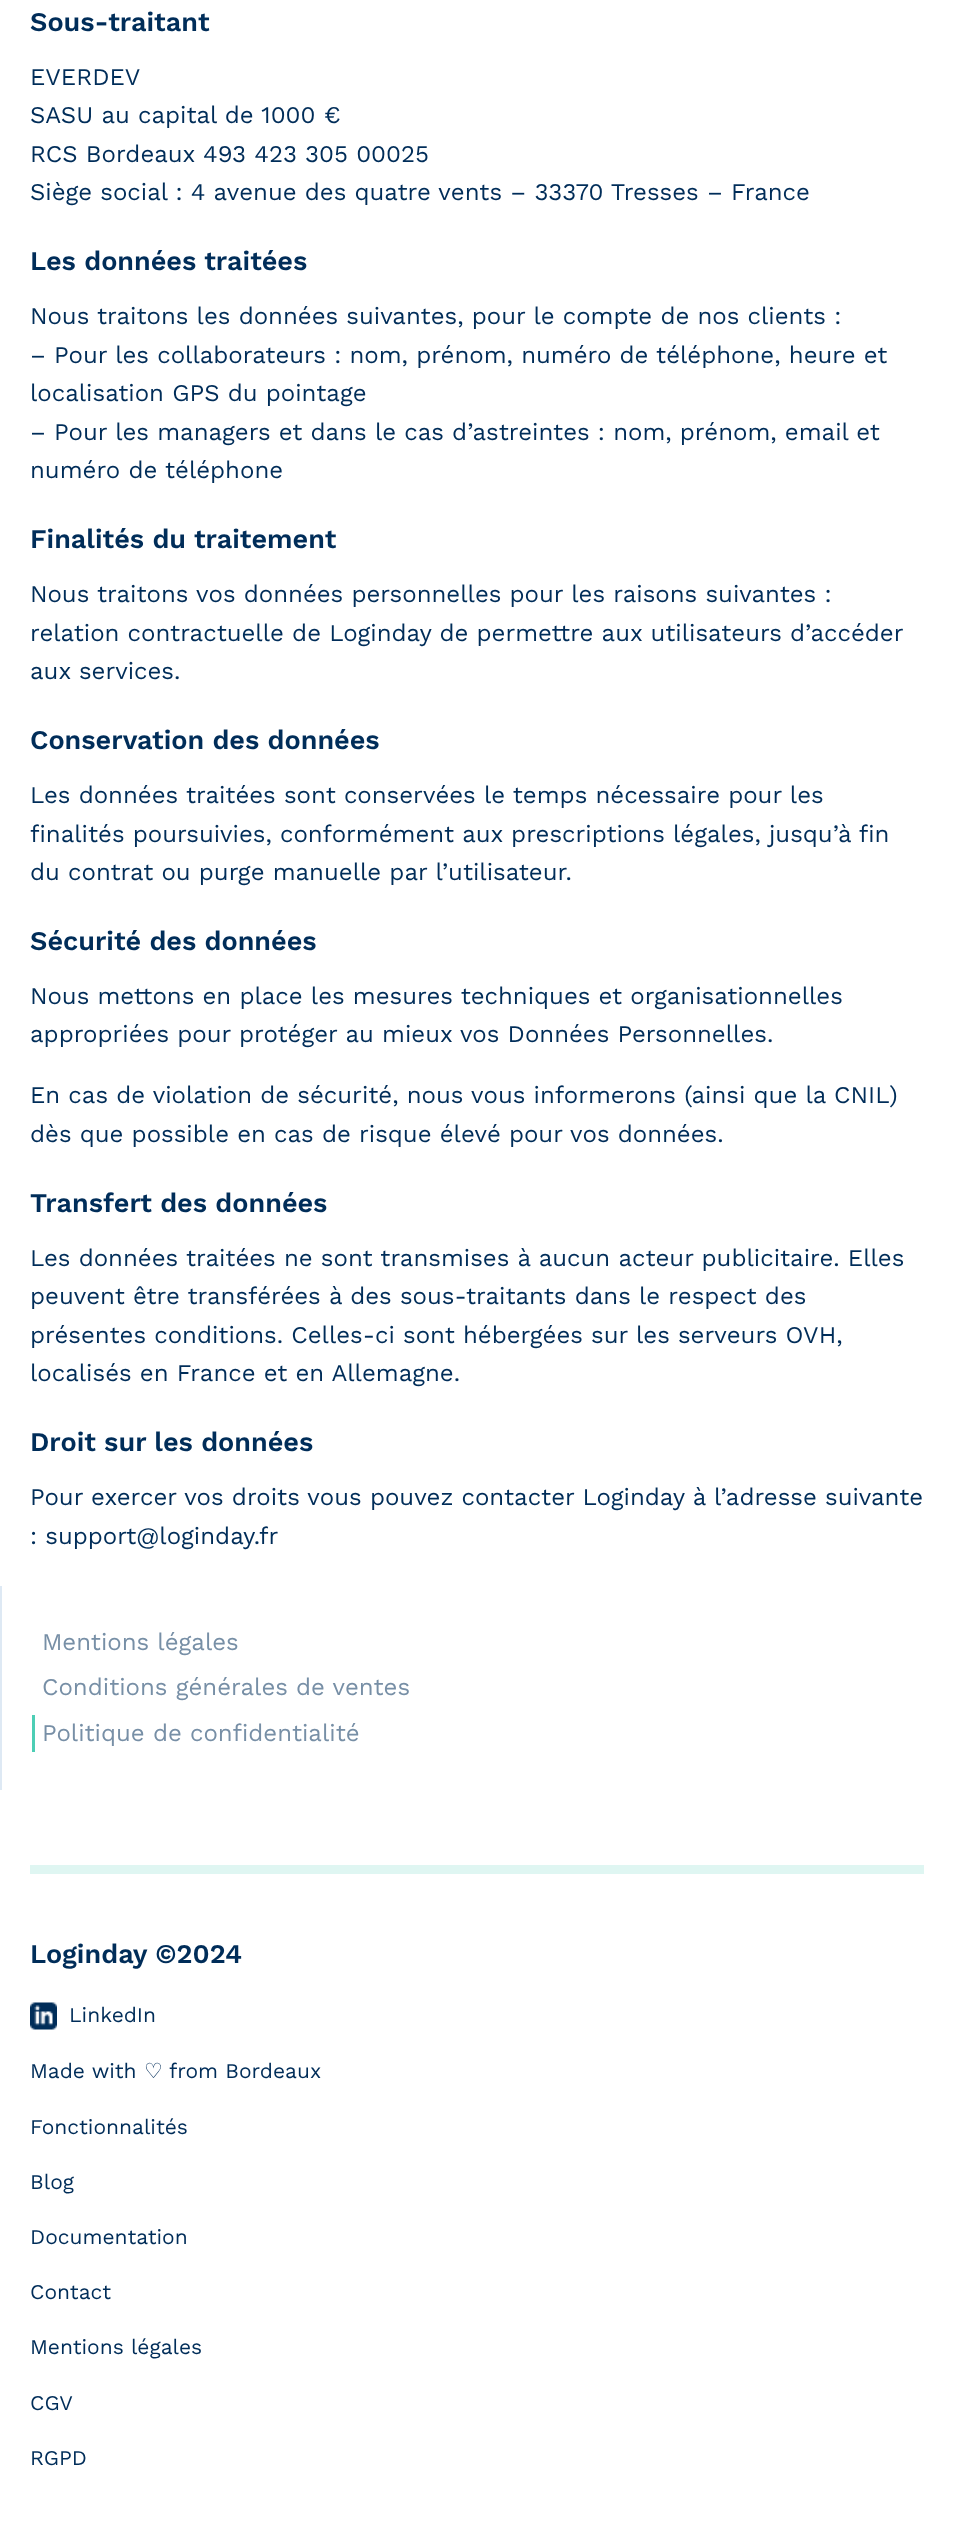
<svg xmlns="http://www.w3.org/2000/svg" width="953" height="2530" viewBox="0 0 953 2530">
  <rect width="100%" height="100%" fill="rgb(255,255,255)"/>
  <text x="30" y="31" font-family="Work Sans" font-size="27" font-weight="600" fill="rgb(0,45,89)">Sous-traitant</text>
  <g font-family="Work Sans" font-size="24" fill="rgb(0,45,89)">
    <text>
      <tspan x="30" y="85">EVERDEV</tspan>
      <tspan x="30" y="123">SASU au capital de 1000 €</tspan>
      <tspan x="30" y="162">RCS Bordeaux 493 423 305 00025</tspan>
      <tspan x="30" y="200">Siège social : 4 avenue des quatre vents – 33370 Tresses – France</tspan>
    </text>
  </g>
  <text x="30" y="270" font-family="Work Sans" font-size="27" font-weight="600" fill="rgb(0,45,89)">Les données traitées</text>
  <g font-family="Work Sans" font-size="24" fill="rgb(0,45,89)">
    <text>
      <tspan x="30" y="324">Nous traitons les données suivantes, pour le compte de nos clients :</tspan>
      <tspan x="30" y="363">– Pour les collaborateurs : nom, prénom, numéro de téléphone, heure et</tspan>
      <tspan x="30" y="401">localisation GPS du pointage</tspan>
      <tspan x="30" y="440">– Pour les managers et dans le cas d’astreintes : nom, prénom, email et</tspan>
      <tspan x="30" y="478">numéro de téléphone</tspan>
    </text>
  </g>
  <text x="30" y="548" font-family="Work Sans" font-size="27" font-weight="600" fill="rgb(0,45,89)">Finalités du traitement</text>
  <g font-family="Work Sans" font-size="24" fill="rgb(0,45,89)">
    <text>
      <tspan x="30" y="602">Nous traitons vos données personnelles pour les raisons suivantes :</tspan>
      <tspan x="30" y="641">relation contractuelle de Loginday de permettre aux utilisateurs d’accéder</tspan>
      <tspan x="30" y="679">aux services.</tspan>
    </text>
  </g>
  <text x="30" y="749" font-family="Work Sans" font-size="27" font-weight="600" fill="rgb(0,45,89)">Conservation des données</text>
  <g font-family="Work Sans" font-size="24" fill="rgb(0,45,89)">
    <text>
      <tspan x="30" y="803">Les données traitées sont conservées le temps nécessaire pour les</tspan>
      <tspan x="30" y="842">finalités poursuivies, conformément aux prescriptions légales, jusqu’à fin</tspan>
      <tspan x="30" y="880">du contrat ou purge manuelle par l’utilisateur.</tspan>
    </text>
  </g>
  <text x="30" y="950" font-family="Work Sans" font-size="27" font-weight="600" fill="rgb(0,45,89)">Sécurité des données</text>
  <g font-family="Work Sans" font-size="24" fill="rgb(0,45,89)">
    <text>
      <tspan x="30" y="1004">Nous mettons en place les mesures techniques et organisationnelles</tspan>
      <tspan x="30" y="1042">appropriées pour protéger au mieux vos Données Personnelles.</tspan>
    </text>
    <text>
      <tspan x="30" y="1103">En cas de violation de sécurité, nous vous informerons (ainsi que la CNIL)</tspan>
      <tspan x="30" y="1142">dès que possible en cas de risque élevé pour vos données.</tspan>
    </text>
  </g>
  <text x="30" y="1212" font-family="Work Sans" font-size="27" font-weight="600" fill="rgb(0,45,89)">Transfert des données</text>
  <g font-family="Work Sans" font-size="24" fill="rgb(0,45,89)">
    <text>
      <tspan x="30" y="1266">Les données traitées ne sont transmises à aucun acteur publicitaire. Elles</tspan>
      <tspan x="30" y="1304">peuvent être transférées à des sous-traitants dans le respect des</tspan>
      <tspan x="30" y="1343">présentes conditions. Celles-ci sont hébergées sur les serveurs OVH,</tspan>
      <tspan x="30" y="1381">localisés en France et en Allemagne.</tspan>
    </text>
  </g>
  <text x="30" y="1451" font-family="Work Sans" font-size="27" font-weight="600" fill="rgb(0,45,89)">Droit sur les données</text>
  <g font-family="Work Sans" font-size="24" fill="rgb(0,45,89)">
    <text>
      <tspan x="30" y="1505">Pour exercer vos droits vous pouvez contacter Loginday à l’adresse suivante</tspan>
      <tspan x="30" y="1544">: support@loginday.fr</tspan>
    </text>
  </g>
  <rect x="0" y="1586" width="2" height="204" fill="rgb(222,233,244)"/>
  <g font-family="Work Sans" font-size="24" fill="rgb(119,143,166)">
    <text>
      <tspan x="42" y="1650">Mentions légales</tspan>
      <tspan x="42" y="1695">Conditions générales de ventes</tspan>
    </text>
  </g>
  <rect x="32" y="1715" width="3" height="37" fill="rgb(77,206,181)"/>
  <text x="42" y="1741" font-family="Work Sans" font-size="24" fill="rgb(119,143,166)">Politique de confidentialité</text>
  <rect x="30" y="1865" width="894" height="9" fill="rgb(223,246,242)"/>
  <text x="30" y="1963" font-family="Work Sans" font-size="27" font-weight="600" fill="rgb(0,45,89)">Loginday ©2024</text>
  <image x="30" y="2002" width="27" height="28" href="pic1.png"/>
  <g font-family="Work Sans" font-size="21" fill="rgb(0,45,89)">
    <text x="69" y="2022">LinkedIn</text>
    <text x="30" y="2078">Made with</text>
  </g>
  <text x="144" y="2078" font-family="DejaVu Sans" font-size="21" fill="rgb(0,45,89)">♡</text>
  <g font-family="Work Sans" font-size="21" fill="rgb(0,45,89)">
    <text x="169" y="2078">from Bordeaux</text>
    <text x="30" y="2134">Fonctionnalités</text>
    <text x="30" y="2189">Blog</text>
    <text x="30" y="2244">Documentation</text>
    <text x="30" y="2299">Contact</text>
    <text x="30" y="2354">Mentions légales</text>
    <text x="30" y="2410">CGV</text>
    <text x="30" y="2465">RGPD</text>
  </g>
</svg>
